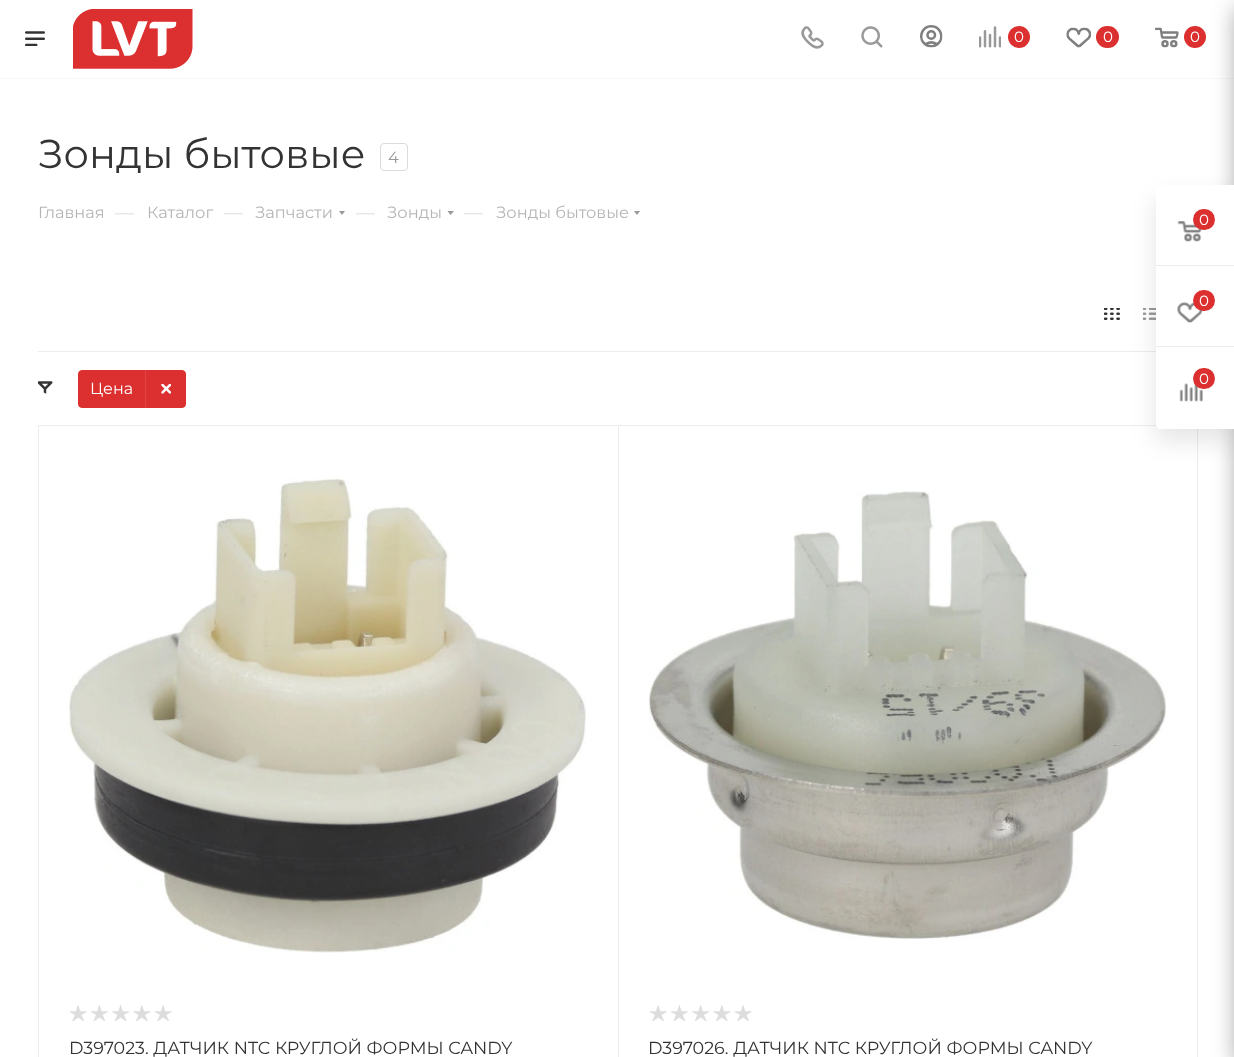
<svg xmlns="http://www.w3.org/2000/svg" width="1234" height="1057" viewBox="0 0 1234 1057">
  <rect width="100%" height="100%" fill="rgb(255,255,255)"/>
  <rect x="0" y="78" width="1234" height="1" fill="rgb(248,248,248)"/>
  <image x="25" y="31" width="20" height="15" href="pic1.png"/>
  <image x="73" y="9" width="120" height="60" href="pic2.png"/>
  <image x="801" y="26" width="23" height="23" href="pic3.png"/>
  <image x="861" y="26" width="22" height="22" href="pic4.png"/>
  <image x="920" y="25" width="23" height="23" href="pic5.png"/>
  <image x="979" y="26" width="22" height="22" href="pic6.png"/>
  <circle cx="1019" cy="37" r="11" fill="rgb(220,47,47)"/>
  <text x="1014" y="42" font-family="Montserrat" font-size="15" fill="rgb(255,255,255)">0</text>
  <image x="1066" y="27" width="26" height="21" href="pic7.png"/>
  <rect x="1096" y="26" width="23" height="22" rx="11" fill="rgb(220,47,47)"/>
  <text x="1103" y="42" font-family="Montserrat" font-size="15" fill="rgb(255,255,255)">0</text>
  <image x="1155" y="27" width="24" height="21" href="pic8.png"/>
  <circle cx="1195" cy="37" r="11" fill="rgb(220,47,47)"/>
  <text x="1190" y="42" font-family="Montserrat" font-size="15" fill="rgb(255,255,255)">0</text>
  <text x="38" y="168" font-family="Montserrat" font-size="40" fill="rgb(51,51,51)">Зонды бытовые</text>
  <rect x="380.5" y="143.5" width="27" height="27" rx="3.5" fill="none" stroke="rgb(219,219,219)"/>
  <text x="388" y="163" font-family="Montserrat" font-size="16.25" fill="rgb(153,153,153)">4</text>
  <text x="38" y="218" font-family="Montserrat" font-size="16.25" fill="rgb(182,181,181)">Главная</text>
  <text x="115" y="219" font-family="Montserrat" font-size="19" fill="rgb(221,221,221)">—</text>
  <text x="147" y="218" font-family="Montserrat" font-size="16.25" fill="rgb(182,181,181)">Каталог</text>
  <text x="224" y="219" font-family="Montserrat" font-size="19" fill="rgb(221,221,221)">—</text>
  <text x="255" y="218" font-family="Montserrat" font-size="16.25" fill="rgb(182,181,181)">Запчасти</text>
  <path d="M339 211H345L342 215Z" fill="rgb(153,153,153)" fill-rule="evenodd"/>
  <text x="356" y="219" font-family="Montserrat" font-size="19" fill="rgb(221,221,221)">—</text>
  <text x="387" y="218" font-family="Montserrat" font-size="16.25" fill="rgb(182,181,181)">Зонды</text>
  <path d="M447.5 211H454L450.5 215Z" fill="rgb(153,153,153)" fill-rule="evenodd"/>
  <text x="464" y="219" font-family="Montserrat" font-size="19" fill="rgb(221,221,221)">—</text>
  <text x="496" y="218" font-family="Montserrat" font-size="16.25" fill="rgb(182,181,181)">Зонды бытовые</text>
  <path d="M634 211H640L637 215Z" fill="rgb(153,153,153)" fill-rule="evenodd"/>
  <rect x="38" y="351" width="1118" height="1" fill="rgb(236,236,236)"/>
  <image x="1104" y="308" width="16" height="12" href="pic9.png"/>
  <image x="1143" y="308" width="13" height="12" href="pic10.png"/>
  <image x="38" y="381" width="15" height="13" href="pic11.png"/>
  <rect x="78.5" y="370.5" width="107" height="37" rx="3.5" fill="rgb(220,47,47)" stroke="rgb(220,47,47)"/>
  <text x="90" y="394" font-family="Montserrat" font-size="16" fill="rgb(255,255,255)">Цена</text>
  <rect x="145" y="370" width="1" height="38" fill="rgb(224,68,68)"/>
  <image x="161" y="384" width="10" height="10" href="pic12.png"/>
  <rect x="38.5" y="425.5" width="580" height="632" fill="none" stroke="rgb(236,236,236)"/>
  <image x="69" y="478" width="518" height="475" href="pic13.png"/>
  <image x="69" y="1005" width="18" height="16" href="pic14.png"/>
  <image x="90" y="1005" width="18" height="16" href="pic15.png"/>
  <image x="112" y="1005" width="18" height="16" href="pic16.png"/>
  <image x="133" y="1005" width="18" height="16" href="pic17.png"/>
  <image x="154" y="1005" width="18" height="16" href="pic14.png"/>
  <text x="69" y="1054" font-family="Montserrat" font-size="17.5" fill="rgb(51,51,51)">D397023. ДАТЧИК NTC КРУГЛОЙ ФОРМЫ CANDY</text>
  <rect x="618.5" y="425.5" width="579" height="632" fill="none" stroke="rgb(236,236,236)"/>
  <image x="649" y="491" width="517" height="448" href="pic18.png"/>
  <image x="649" y="1005" width="18" height="16" href="pic14.png"/>
  <image x="670" y="1005" width="18" height="16" href="pic15.png"/>
  <image x="692" y="1005" width="18" height="16" href="pic16.png"/>
  <image x="713" y="1005" width="18" height="16" href="pic17.png"/>
  <image x="734" y="1005" width="18" height="16" href="pic14.png"/>
  <text x="648" y="1054" font-family="Montserrat" font-size="17.5" fill="rgb(51,51,51)">D397026. ДАТЧИК NTC КРУГЛОЙ ФОРМЫ CANDY</text>
  <rect x="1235" y="8" width="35" height="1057" rx="2.5" fill="rgba(44,44,44,0.4)" filter="blur(11px)"/>
  <rect x="1156" y="198" width="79" height="243" rx="5" fill="rgba(0,0,0,0.1)" filter="blur(12.5px)"/>
  <path d="M1161 185H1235V429H1161C1158 429 1156 427 1156 424V190C1156 187 1158 185 1161 185Z" fill="rgb(255,255,255)"/>
  <rect x="1156" y="265" width="78" height="1" fill="rgb(236,236,236)"/>
  <image x="1177" y="221" width="25" height="21" href="pic19.png"/>
  <rect x="1193" y="209" width="22" height="21" rx="10.5" fill="rgb(220,47,47)"/>
  <text x="1199" y="225" font-family="Montserrat" font-size="15" fill="rgb(255,255,255)">0</text>
  <rect x="1156" y="346" width="78" height="1" fill="rgb(236,236,236)"/>
  <image x="1177" y="302" width="26" height="21" href="pic20.png"/>
  <rect x="1193" y="290" width="22" height="21" rx="10.5" fill="rgb(220,47,47)"/>
  <text x="1199" y="306" font-family="Montserrat" font-size="15" fill="rgb(255,255,255)">0</text>
  <image x="1179" y="383" width="24" height="19" href="pic21.png"/>
  <rect x="1193" y="368" width="22" height="21" rx="10.5" fill="rgb(220,47,47)"/>
  <text x="1199" y="384" font-family="Montserrat" font-size="15" fill="rgb(255,255,255)">0</text>
</svg>
